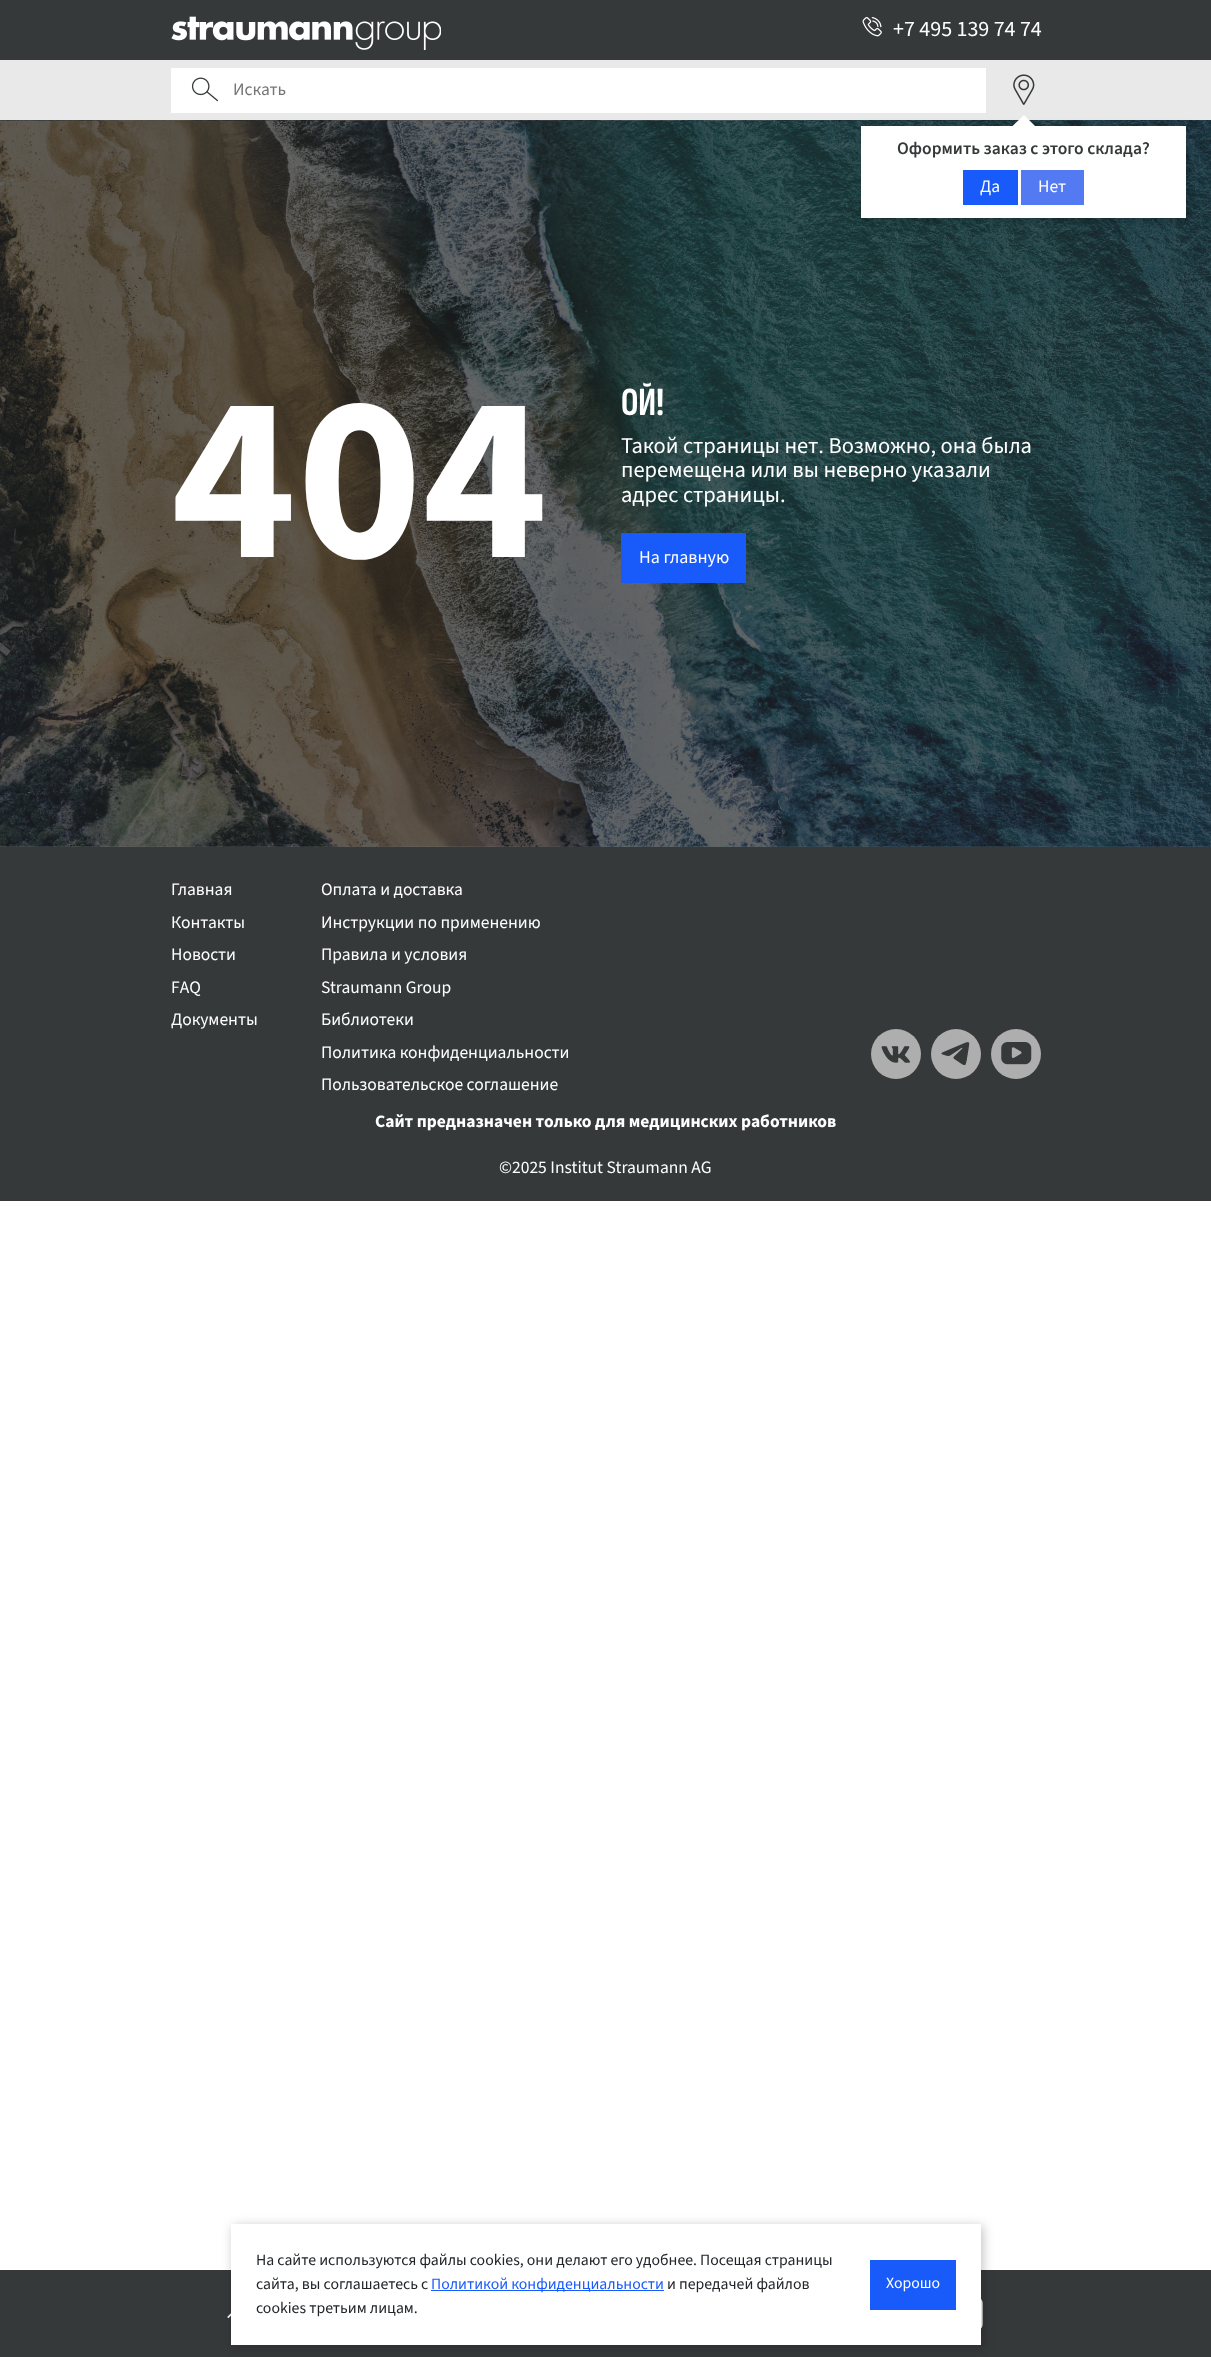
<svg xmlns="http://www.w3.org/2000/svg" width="1211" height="2357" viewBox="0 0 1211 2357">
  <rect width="100%" height="100%" fill="rgb(255,255,255)"/>
  <rect x="0" y="0" width="1211" height="60" fill="rgb(54,57,58)"/>
  <image x="171" y="16" width="270" height="34" href="pic1.png"/>
  <image x="862" y="17" width="20" height="20" href="pic2.png"/>
  <text x="893" y="36" font-family="'Source Sans 3'" font-size="22" fill="rgb(255,255,255)">+7 495 139 74 74</text>
  <rect x="0" y="60" width="1211" height="60" fill="rgb(233,233,233)"/>
  <rect x="0" y="846" width="1211" height="355" fill="rgb(54,57,58)"/>
  <image x="0" y="120" width="1211" height="727" href="pic5.png"/>
  <rect x="863" y="129" width="325" height="91" fill="rgba(0,0,0,0.24)" filter="blur(5.5px)"/>
  <rect x="171" y="68" width="815" height="45" fill="rgb(255,255,255)"/>
  <image x="191" y="77" width="27" height="25" href="pic3.png"/>
  <text x="233" y="95" font-family="'Source Sans 3'" font-size="17.5" fill="rgb(117,117,117)">Искать</text>
  <image x="1013" y="74" width="22" height="31" href="pic4.png"/>
  <rect x="861" y="126" width="325" height="92" fill="rgb(255,255,255)"/>
  <path d="M1035 126H1012.5L1024 115Z" fill="rgb(255,255,255)"/>
  <text x="897" y="154" font-family="'Source Sans 3'" font-size="17.5" font-weight="600" fill="rgb(54,57,58)">Оформить заказ с этого склада?</text>
  <rect x="963" y="170" width="55" height="35" fill="rgb(25,90,250)"/>
  <text x="980" y="192" font-family="'Source Sans 3'" font-size="17.5" fill="rgb(255,255,255)">Да</text>
  <rect x="1021" y="170" width="63" height="35" fill="rgb(83,122,243)"/>
  <text x="1038" y="192" font-family="'Source Sans 3'" font-size="17.5" fill="rgb(255,255,255)">Нет</text>
  <text x="171" y="557" font-family="'Source Sans 3'" font-size="238" font-weight="bold" fill="rgb(255,255,255)">404</text>
  <text x="621" y="415" font-family="Sofia Sans Extra Condensed" font-size="40" font-weight="bold" fill="rgb(255,255,255)">ОЙ!</text>
  <g font-family="'Source Sans 3'" font-size="22.5" fill="rgb(255,255,255)">
    <text>
      <tspan x="621" y="453">Такой страницы нет. Возможно, она была</tspan>
      <tspan x="621" y="477">перемещена или вы неверно указали</tspan>
      <tspan x="621" y="502">адрес страницы.</tspan>
    </text>
  </g>
  <rect x="621" y="533" width="125" height="50" fill="rgb(25,90,250)"/>
  <text x="639" y="563" font-family="'Source Sans 3'" font-size="18" fill="rgb(255,255,255)">На главную</text>
  <g font-family="'Source Sans 3'" font-size="17.5" fill="rgb(255,255,255)">
    <text>
      <tspan x="171" y="895">Главная</tspan>
      <tspan x="171" y="928">Контакты</tspan>
      <tspan x="171" y="960">Новости</tspan>
      <tspan x="171" y="993">FAQ</tspan>
      <tspan x="171" y="1025">Документы</tspan>
    </text>
    <text>
      <tspan x="321" y="895">Оплата и доставка</tspan>
      <tspan x="321" y="928">Инструкции по применению</tspan>
      <tspan x="321" y="960">Правила и условия</tspan>
      <tspan x="321" y="993">Straumann Group</tspan>
      <tspan x="321" y="1025">Библиотеки</tspan>
      <tspan x="321" y="1058">Политика конфиденциальности</tspan>
      <tspan x="321" y="1090">Пользовательское соглашение</tspan>
    </text>
  </g>
  <circle cx="896" cy="1054" r="25" fill="rgb(174,174,174)"/>
  <image x="881" y="1046" width="29" height="17" href="pic6.png"/>
  <circle cx="956" cy="1054" r="25" fill="rgb(174,174,174)"/>
  <image x="941" y="1042" width="29" height="24" href="pic7.png"/>
  <circle cx="1016" cy="1054" r="25" fill="rgb(174,174,174)"/>
  <image x="1001" y="1042" width="31" height="23" href="pic8.png"/>
  <text x="375" y="1127" font-family="'Source Sans 3'" font-size="17.5" font-weight="bold" fill="rgb(255,255,255)">Сайт предназначен только для медицинских работников</text>
  <text x="499" y="1173" font-family="'Source Sans 3'" font-size="17.5" fill="rgb(255,255,255)">©2025 Institut Straumann AG</text>
  <rect x="0" y="2270" width="1211" height="87" fill="rgb(54,57,58)"/>
  <image x="227" y="2313" width="4" height="6" href="pic9.png"/>
  <image x="981" y="2299" width="2" height="30" href="pic10.png"/>
  <rect x="233" y="2226" width="750" height="122" fill="rgba(0,0,0,0.24)" filter="blur(5.5px)"/>
  <rect x="231" y="2224" width="750" height="121" fill="rgb(255,255,255)"/>
  <g font-family="'Source Sans 3'" font-size="15.75" fill="rgb(33,37,41)">
    <text>
      <tspan x="256" y="2265">На сайте используются файлы cookies, они делают его удобнее. Посещая страницы</tspan>
      <tspan x="256" y="2289">сайта, вы соглашаетесь с</tspan>
    </text>
  </g>
  <rect x="431" y="2290" width="233" height="1" fill="rgb(25,90,250)"/>
  <text x="431" y="2289" font-family="'Source Sans 3'" font-size="15.75" fill="rgb(25,90,250)">Политикой конфиденциальности</text>
  <g font-family="'Source Sans 3'" font-size="15.75" fill="rgb(33,37,41)">
    <text x="667" y="2289">и передачей файлов</text>
    <text x="256" y="2313">cookies третьим лицам.</text>
  </g>
  <rect x="870" y="2260" width="86" height="50" fill="rgb(25,90,250)"/>
  <text x="886" y="2288" font-family="'Source Sans 3'" font-size="15.75" fill="rgb(255,255,255)">Хорошо</text>
</svg>
